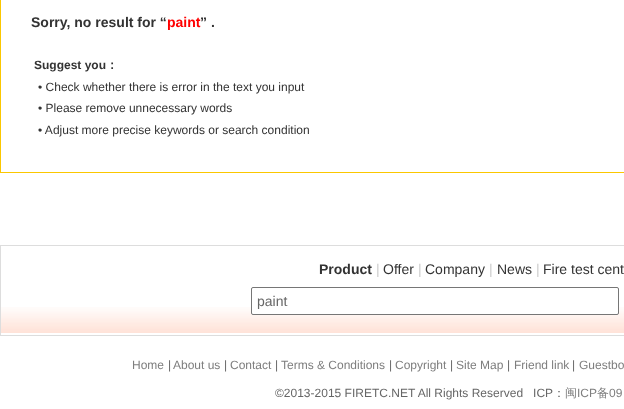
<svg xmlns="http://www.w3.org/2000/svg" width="624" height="409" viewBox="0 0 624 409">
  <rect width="100%" height="100%" fill="rgb(255,255,255)"/>
  <rect x="0.5" y="-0.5" width="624" height="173" fill="none" stroke="rgb(251,199,0)"/>
  <text x="31" y="27" font-family="Liberation Sans" font-size="14" font-weight="bold" fill="rgb(51,51,51)">Sorry, no result for “</text>
  <text x="167" y="27" font-family="Liberation Sans" font-size="14" font-weight="bold" fill="rgb(255,0,0)">paint</text>
  <text x="200" y="27" font-family="Liberation Sans" font-size="14" font-weight="bold" fill="rgb(51,51,51)">” .</text>
  <text x="34" y="69" font-family="Liberation Sans" font-size="12" font-weight="bold" fill="rgb(51,51,51)">Suggest you</text>
  <text x="106" y="69" font-family="WenQuanYi Zen Hei" font-size="12" font-weight="bold" fill="rgb(51,51,51)">：</text>
  <g font-family="Liberation Sans" font-size="12" fill="rgb(51,51,51)">
    <text>
      <tspan x="38" y="91">• Check whether there is error in the text you input</tspan>
      <tspan x="38" y="112">• Please remove unnecessary words</tspan>
      <tspan x="38" y="134">• Adjust more precise keywords or search condition</tspan>
    </text>
  </g>
  <image x="1" y="307" width="623" height="26" href="pic1.png"/>
  <rect x="0.5" y="245.5" width="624" height="90" fill="none" stroke="rgb(221,221,221)"/>
  <text x="319" y="274" font-family="Liberation Sans" font-size="14" font-weight="bold" fill="rgb(51,51,51)">Product</text>
  <text x="376" y="274" font-family="Liberation Sans" font-size="14" fill="rgb(204,204,204)">|</text>
  <text x="383" y="274" font-family="Liberation Sans" font-size="14" fill="rgb(51,51,51)">Offer</text>
  <text x="418" y="274" font-family="Liberation Sans" font-size="14" fill="rgb(204,204,204)">|</text>
  <text x="425" y="274" font-family="Liberation Sans" font-size="14" fill="rgb(51,51,51)">Company</text>
  <text x="489" y="274" font-family="Liberation Sans" font-size="14" fill="rgb(204,204,204)">|</text>
  <text x="497" y="274" font-family="Liberation Sans" font-size="14" fill="rgb(51,51,51)">News</text>
  <text x="536" y="274" font-family="Liberation Sans" font-size="14" fill="rgb(204,204,204)">|</text>
  <text x="543" y="274" font-family="Liberation Sans" font-size="14" fill="rgb(51,51,51)">Fire test cent</text>
  <rect x="251.5" y="287.5" width="367" height="27" rx="1.5" fill="rgb(255,255,255)" stroke="rgb(118,118,118)"/>
  <text x="257" y="306" font-family="Liberation Sans" font-size="14" fill="rgb(102,102,102)">paint</text>
  <text x="132" y="369" font-family="Liberation Sans" font-size="12" fill="rgb(126,126,126)">Home</text>
  <text x="168" y="369" font-family="Liberation Sans" font-size="12" fill="rgb(102,102,102)">|</text>
  <text x="173" y="369" font-family="Liberation Sans" font-size="12" fill="rgb(126,126,126)">About us</text>
  <text x="224" y="369" font-family="Liberation Sans" font-size="12" fill="rgb(102,102,102)">|</text>
  <text x="230" y="369" font-family="Liberation Sans" font-size="12" fill="rgb(126,126,126)">Contact</text>
  <text x="275" y="369" font-family="Liberation Sans" font-size="12" fill="rgb(102,102,102)">|</text>
  <text x="281" y="369" font-family="Liberation Sans" font-size="12" fill="rgb(126,126,126)">Terms &amp; Conditions</text>
  <text x="389" y="369" font-family="Liberation Sans" font-size="12" fill="rgb(102,102,102)">|</text>
  <text x="395" y="369" font-family="Liberation Sans" font-size="12" fill="rgb(126,126,126)">Copyright</text>
  <text x="450" y="369" font-family="Liberation Sans" font-size="12" fill="rgb(102,102,102)">|</text>
  <text x="456" y="369" font-family="Liberation Sans" font-size="12" fill="rgb(126,126,126)">Site Map</text>
  <text x="507" y="369" font-family="Liberation Sans" font-size="12" fill="rgb(102,102,102)">|</text>
  <text x="514" y="369" font-family="Liberation Sans" font-size="12" fill="rgb(126,126,126)">Friend link</text>
  <text x="572" y="369" font-family="Liberation Sans" font-size="12" fill="rgb(102,102,102)">|</text>
  <text x="579" y="369" font-family="Liberation Sans" font-size="12" fill="rgb(126,126,126)">Guestbo</text>
  <text x="275" y="397" font-family="Liberation Sans" font-size="12" fill="rgb(102,102,102)" xml:space="preserve">©2013-2015 FIRETC.NET All Rights Reserved   ICP</text>
  <text x="553" y="397" font-family="WenQuanYi Zen Hei" font-size="12" font-weight="500" fill="rgb(102,102,102)">：</text>
  <text x="565" y="397" font-family="WenQuanYi Zen Hei" font-size="12" font-weight="500" fill="rgb(126,126,126)">闽</text>
  <text x="577" y="397" font-family="Liberation Sans" font-size="12" fill="rgb(126,126,126)">ICP</text>
  <text x="597" y="397" font-family="WenQuanYi Zen Hei" font-size="12" font-weight="500" fill="rgb(126,126,126)">备</text>
  <text x="609" y="397" font-family="Liberation Sans" font-size="12" fill="rgb(126,126,126)">09</text>
</svg>
